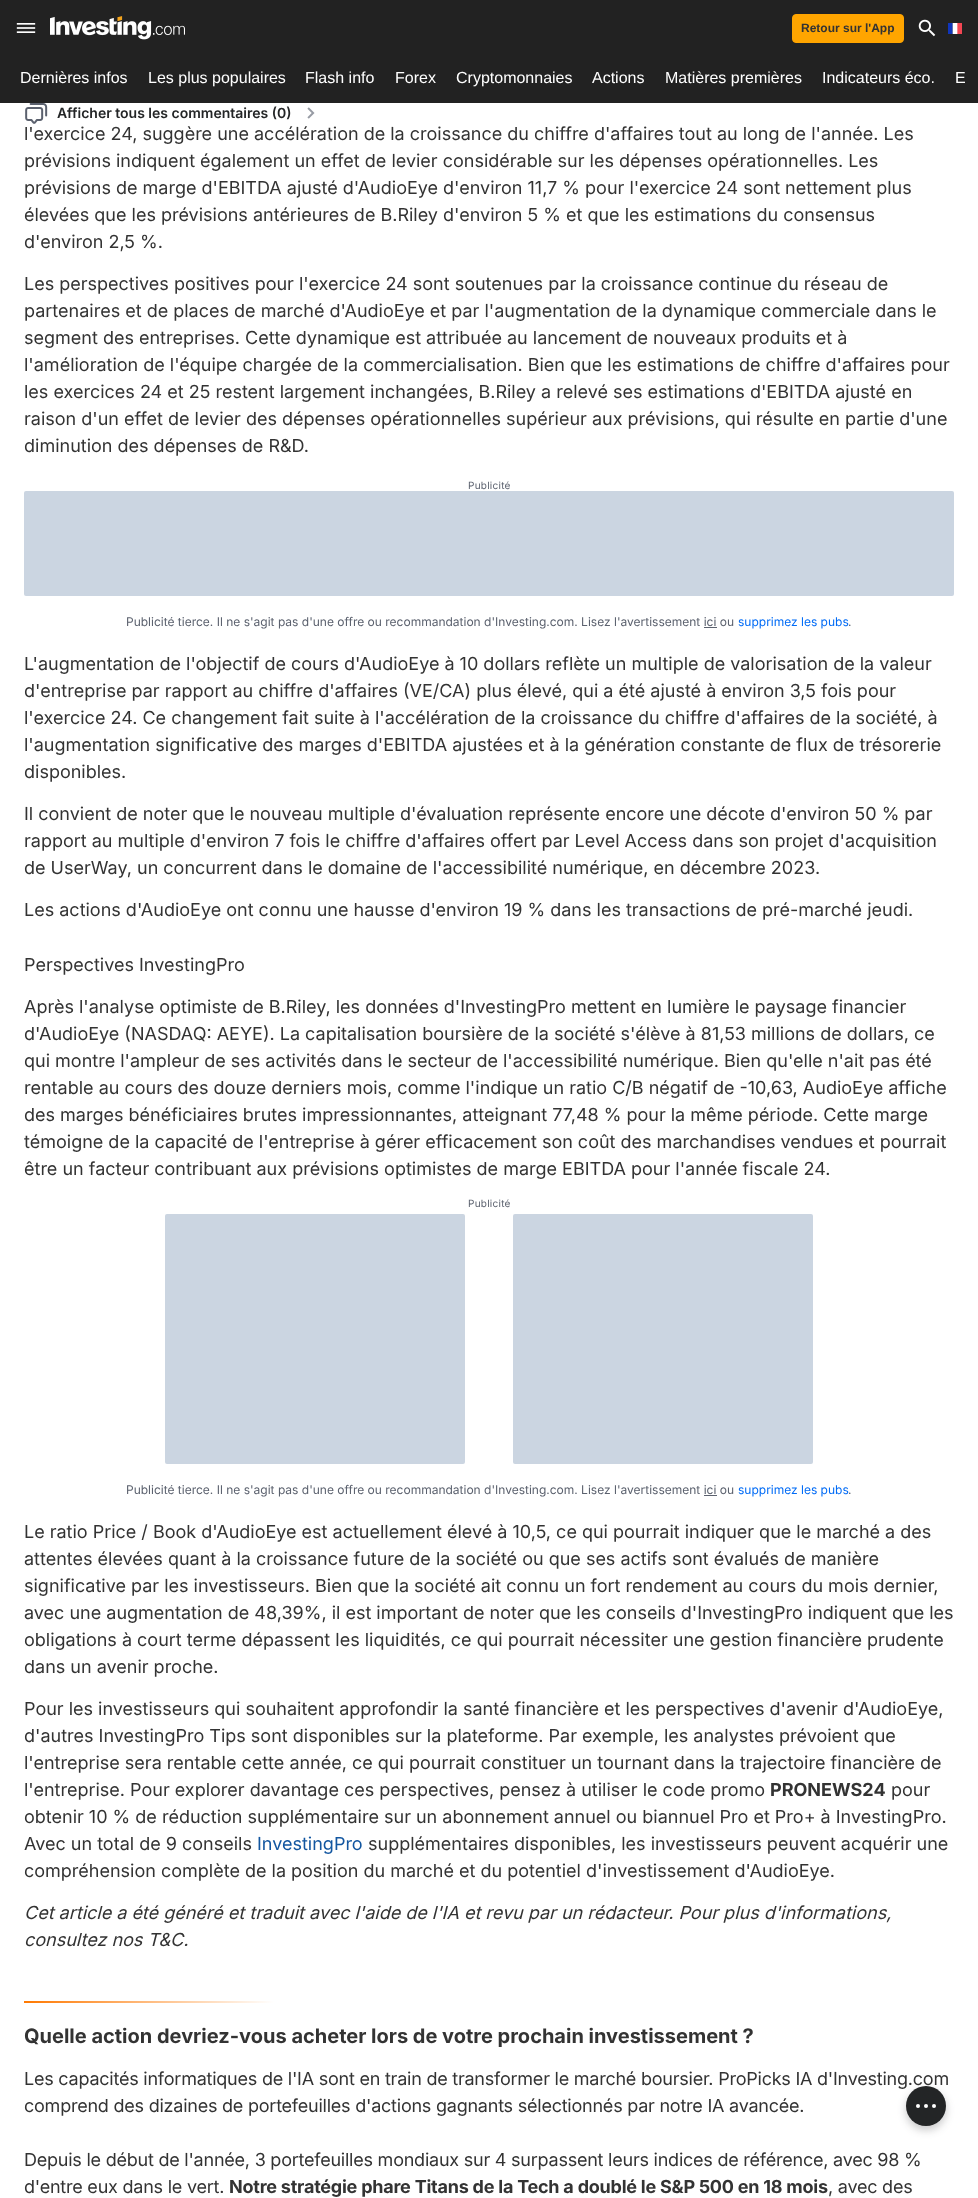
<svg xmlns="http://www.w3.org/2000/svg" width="978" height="2198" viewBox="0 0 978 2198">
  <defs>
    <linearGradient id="g1" gradientUnits="userSpaceOnUse" x1="24" y1="2002" x2="274" y2="2002"><stop offset="0" stop-color="rgb(255,121,1)"/><stop offset="1" stop-color="rgb(255,255,255)"/></linearGradient>
  </defs>
  <rect width="100%" height="100%" fill="rgb(255,255,255)"/>
  <rect x="0" y="0" width="978" height="103" fill="rgb(34,34,34)"/>
  <image x="16" y="23" width="20" height="10" href="pic1.png"/>
  <image x="50" y="16" width="135" height="24" href="pic2.png"/>
  <rect x="792.5" y="14.5" width="111" height="28" rx="3.5" fill="rgb(255,165,0)" stroke="rgb(255,165,0)"/>
  <text x="801" y="32" font-family="Liberation Sans" font-size="12" font-weight="bold" fill="rgb(51,51,51)">Retour sur l'App</text>
  <image x="918" y="19" width="18" height="18" href="pic3.png"/>
  <image x="948" y="23" width="14" height="11" href="pic4.png"/>
  <g font-family="Liberation Sans" font-size="16" fill="rgb(255,255,255)">
    <text x="20" y="83">Dernières infos</text>
    <text x="148" y="83">Les plus populaires</text>
    <text x="305" y="83">Flash info</text>
    <text x="395" y="83">Forex</text>
    <text x="456" y="83">Cryptomonnaies</text>
    <text x="592" y="83">Actions</text>
    <text x="665" y="83">Matières premières</text>
    <text x="822" y="83">Indicateurs éco.</text>
    <text x="955" y="83">E</text>
  </g>
  <image x="25" y="103" width="23" height="21" href="pic5.png"/>
  <text x="57" y="118" font-family="Inter" font-size="14" font-weight="600" fill="rgb(35,37,38)">Afficher tous les commentaires (0)</text>
  <image x="307" y="107" width="8" height="12" href="pic6.png"/>
  <g font-family="Inter" font-size="18" fill="rgb(51,51,51)">
    <text>
      <tspan x="24" y="140">l'exercice 24, suggère une accélération de la croissance du chiffre d'affaires tout au long de l'année. Les</tspan>
      <tspan x="24" y="167">prévisions indiquent également un effet de levier considérable sur les dépenses opérationnelles. Les</tspan>
      <tspan x="24" y="194">prévisions de marge d'EBITDA ajusté d'AudioEye d'environ 11,7 % pour l'exercice 24 sont nettement plus</tspan>
      <tspan x="24" y="221">élevées que les prévisions antérieures de B.Riley d'environ 5 % et que les estimations du consensus</tspan>
      <tspan x="24" y="248">d'environ 2,5 %.</tspan>
    </text>
    <text>
      <tspan x="24" y="290">Les perspectives positives pour l'exercice 24 sont soutenues par la croissance continue du réseau de</tspan>
      <tspan x="24" y="317">partenaires et de places de marché d'AudioEye et par l'augmentation de la dynamique commerciale dans le</tspan>
      <tspan x="24" y="344">segment des entreprises. Cette dynamique est attribuée au lancement de nouveaux produits et à</tspan>
      <tspan x="24" y="371">l'amélioration de l'équipe chargée de la commercialisation. Bien que les estimations de chiffre d'affaires pour</tspan>
      <tspan x="24" y="398">les exercices 24 et 25 restent largement inchangées, B.Riley a relevé ses estimations d'EBITDA ajusté en</tspan>
      <tspan x="24" y="425">raison d'un effet de levier des dépenses opérationnelles supérieur aux prévisions, qui résulte en partie d'une</tspan>
      <tspan x="24" y="452">diminution des dépenses de R&amp;D.</tspan>
    </text>
  </g>
  <text x="468" y="489" font-family="Inter" font-size="10" letter-spacing="0.25" fill="rgb(91,97,110)">Publicité</text>
  <rect x="24" y="491" width="930" height="105" rx="2" fill="rgb(203,213,225)"/>
  <text x="126" y="626" font-family="Inter" font-size="12" fill="rgb(91,97,110)">Publicité tierce. Il ne s'agit pas d'une offre ou recommandation d'Investing.com. Lisez l'avertissement ici ou</text>
  <text x="738" y="626" font-family="Inter" font-size="12" fill="rgb(0,107,246)">supprimez les pubs</text>
  <text x="848" y="626" font-family="Inter" font-size="12" fill="rgb(91,97,110)">.</text>
  <rect x="704" y="627" width="13" height="1" fill="rgb(91,97,110)"/>
  <g font-family="Inter" font-size="18" fill="rgb(51,51,51)">
    <text>
      <tspan x="24" y="670">L'augmentation de l'objectif de cours d'AudioEye à 10 dollars reflète un multiple de valorisation de la valeur</tspan>
      <tspan x="24" y="697">d'entreprise par rapport au chiffre d'affaires (VE/CA) plus élevé, qui a été ajusté à environ 3,5 fois pour</tspan>
      <tspan x="24" y="724">l'exercice 24. Ce changement fait suite à l'accélération de la croissance du chiffre d'affaires de la société, à</tspan>
      <tspan x="24" y="751">l'augmentation significative des marges d'EBITDA ajustées et à la génération constante de flux de trésorerie</tspan>
      <tspan x="24" y="778">disponibles.</tspan>
    </text>
    <text>
      <tspan x="24" y="820">Il convient de noter que le nouveau multiple d'évaluation représente encore une décote d'environ 50 % par</tspan>
      <tspan x="24" y="847">rapport au multiple d'environ 7 fois le chiffre d'affaires offert par Level Access dans son projet d'acquisition</tspan>
      <tspan x="24" y="874">de UserWay, un concurrent dans le domaine de l'accessibilité numérique, en décembre 2023.</tspan>
    </text>
    <text x="24" y="916">Les actions d'AudioEye ont connu une hausse d'environ 19 % dans les transactions de pré-marché jeudi.</text>
    <text x="24" y="971">Perspectives InvestingPro</text>
    <text>
      <tspan x="24" y="1013">Après l'analyse optimiste de B.Riley, les données d'InvestingPro mettent en lumière le paysage financier</tspan>
      <tspan x="24" y="1040">d'AudioEye (NASDAQ: AEYE). La capitalisation boursière de la société s'élève à 81,53 millions de dollars, ce</tspan>
      <tspan x="24" y="1067">qui montre l'ampleur de ses activités dans le secteur de l'accessibilité numérique. Bien qu'elle n'ait pas été</tspan>
      <tspan x="24" y="1094">rentable au cours des douze derniers mois, comme l'indique un ratio C/B négatif de -10,63, AudioEye affiche</tspan>
      <tspan x="24" y="1121">des marges bénéficiaires brutes impressionnantes, atteignant 77,48 % pour la même période. Cette marge</tspan>
      <tspan x="24" y="1148">témoigne de la capacité de l'entreprise à gérer efficacement son coût des marchandises vendues et pourrait</tspan>
      <tspan x="24" y="1175">être un facteur contribuant aux prévisions optimistes de marge EBITDA pour l'année fiscale 24.</tspan>
    </text>
  </g>
  <text x="468" y="1207" font-family="Inter" font-size="10" letter-spacing="0.25" fill="rgb(91,97,110)">Publicité</text>
  <rect x="165" y="1214" width="300" height="250" rx="2" fill="rgb(203,213,225)"/>
  <rect x="513" y="1214" width="300" height="250" rx="2" fill="rgb(203,213,225)"/>
  <text x="126" y="1494" font-family="Inter" font-size="12" fill="rgb(91,97,110)">Publicité tierce. Il ne s'agit pas d'une offre ou recommandation d'Investing.com. Lisez l'avertissement ici ou</text>
  <text x="738" y="1494" font-family="Inter" font-size="12" fill="rgb(0,107,246)">supprimez les pubs</text>
  <text x="848" y="1494" font-family="Inter" font-size="12" fill="rgb(91,97,110)">.</text>
  <rect x="704" y="1495" width="13" height="1" fill="rgb(91,97,110)"/>
  <g font-family="Inter" font-size="18" fill="rgb(51,51,51)">
    <text>
      <tspan x="24" y="1538">Le ratio Price / Book d'AudioEye est actuellement élevé à 10,5, ce qui pourrait indiquer que le marché a des</tspan>
      <tspan x="24" y="1565">attentes élevées quant à la croissance future de la société ou que ses actifs sont évalués de manière</tspan>
      <tspan x="24" y="1592">significative par les investisseurs. Bien que la société ait connu un fort rendement au cours du mois dernier,</tspan>
      <tspan x="24" y="1619">avec une augmentation de 48,39%, il est important de noter que les conseils d'InvestingPro indiquent que les</tspan>
      <tspan x="24" y="1646">obligations à court terme dépassent les liquidités, ce qui pourrait nécessiter une gestion financière prudente</tspan>
      <tspan x="24" y="1673">dans un avenir proche.</tspan>
    </text>
    <text>
      <tspan x="24" y="1715">Pour les investisseurs qui souhaitent approfondir la santé financière et les perspectives d'avenir d'AudioEye,</tspan>
      <tspan x="24" y="1742">d'autres InvestingPro Tips sont disponibles sur la plateforme. Par exemple, les analystes prévoient que</tspan>
      <tspan x="24" y="1769">l'entreprise sera rentable cette année, ce qui pourrait constituer un tournant dans la trajectoire financière de</tspan>
      <tspan x="24" y="1796">l'entreprise. Pour explorer davantage ces perspectives, pensez à utiliser le code promo</tspan>
    </text>
  </g>
  <text x="770" y="1796" font-family="Inter" font-size="18" font-weight="bold" fill="rgb(51,51,51)">PRONEWS24</text>
  <g font-family="Inter" font-size="18" fill="rgb(51,51,51)">
    <text x="891" y="1796">pour</text>
    <text>
      <tspan x="24" y="1823">obtenir 10 % de réduction supplémentaire sur un abonnement annuel ou biannuel Pro et Pro+ à InvestingPro.</tspan>
      <tspan x="24" y="1850">Avec un total de 9 conseils</tspan>
    </text>
  </g>
  <text x="257" y="1850" font-family="Inter" font-size="18" fill="rgb(18,86,160)">InvestingPro</text>
  <g font-family="Inter" font-size="18" fill="rgb(51,51,51)">
    <text x="368" y="1850">supplémentaires disponibles, les investisseurs peuvent acquérir une</text>
    <text x="24" y="1877">compréhension complète de la position du marché et du potentiel d'investissement d'AudioEye.</text>
  </g>
  <g font-family="Inter" font-size="18" font-style="italic" fill="rgb(51,51,51)">
    <text>
      <tspan x="24" y="1919">Cet article a été généré et traduit avec l'aide de l'IA et revu par un rédacteur. Pour plus d'informations,</tspan>
      <tspan x="24" y="1946">consultez nos T&amp;C.</tspan>
    </text>
  </g>
  <rect x="24" y="2001" width="250" height="2" fill="url(#g1)"/>
  <text x="24" y="2043" font-family="Inter" font-size="20" font-weight="bold" fill="rgb(51,51,51)">Quelle action devriez-vous acheter lors de votre prochain investissement ?</text>
  <g font-family="Inter" font-size="18" letter-spacing="-0.23" fill="rgb(51,51,51)">
    <text>
      <tspan x="24" y="2085">Les capacités informatiques de l'IA sont en train de transformer le marché boursier. ProPicks IA d'Investing.com</tspan>
      <tspan x="24" y="2112">comprend des dizaines de portefeuilles d'actions gagnants sélectionnés par notre IA avancée.</tspan>
    </text>
    <text>
      <tspan x="24" y="2166">Depuis le début de l'année, 3 portefeuilles mondiaux sur 4 surpassent leurs indices de référence, avec 98 %</tspan>
      <tspan x="24" y="2193">d'entre eux dans le vert.</tspan>
    </text>
  </g>
  <text x="229" y="2193" font-family="Inter" font-size="18" font-weight="bold" letter-spacing="-0.23" fill="rgb(51,51,51)">Notre stratégie phare Titans de la Tech a doublé le S&amp;P 500 en 18 mois</text>
  <text x="828" y="2193" font-family="Inter" font-size="18" letter-spacing="-0.23" fill="rgb(51,51,51)">, avec des</text>
  <rect x="906" y="2090" width="40" height="40" rx="20" fill="rgba(35,37,38,0.25)" filter="blur(4px)"/>
  <circle cx="926" cy="2106" r="20" fill="rgb(35,37,38)"/>
  <circle cx="934" cy="2106" r="2" fill="rgb(255,255,255)"/>
  <circle cx="918" cy="2106" r="2" fill="rgb(255,255,255)"/>
  <circle cx="926" cy="2106" r="2" fill="rgb(255,255,255)"/>
</svg>
